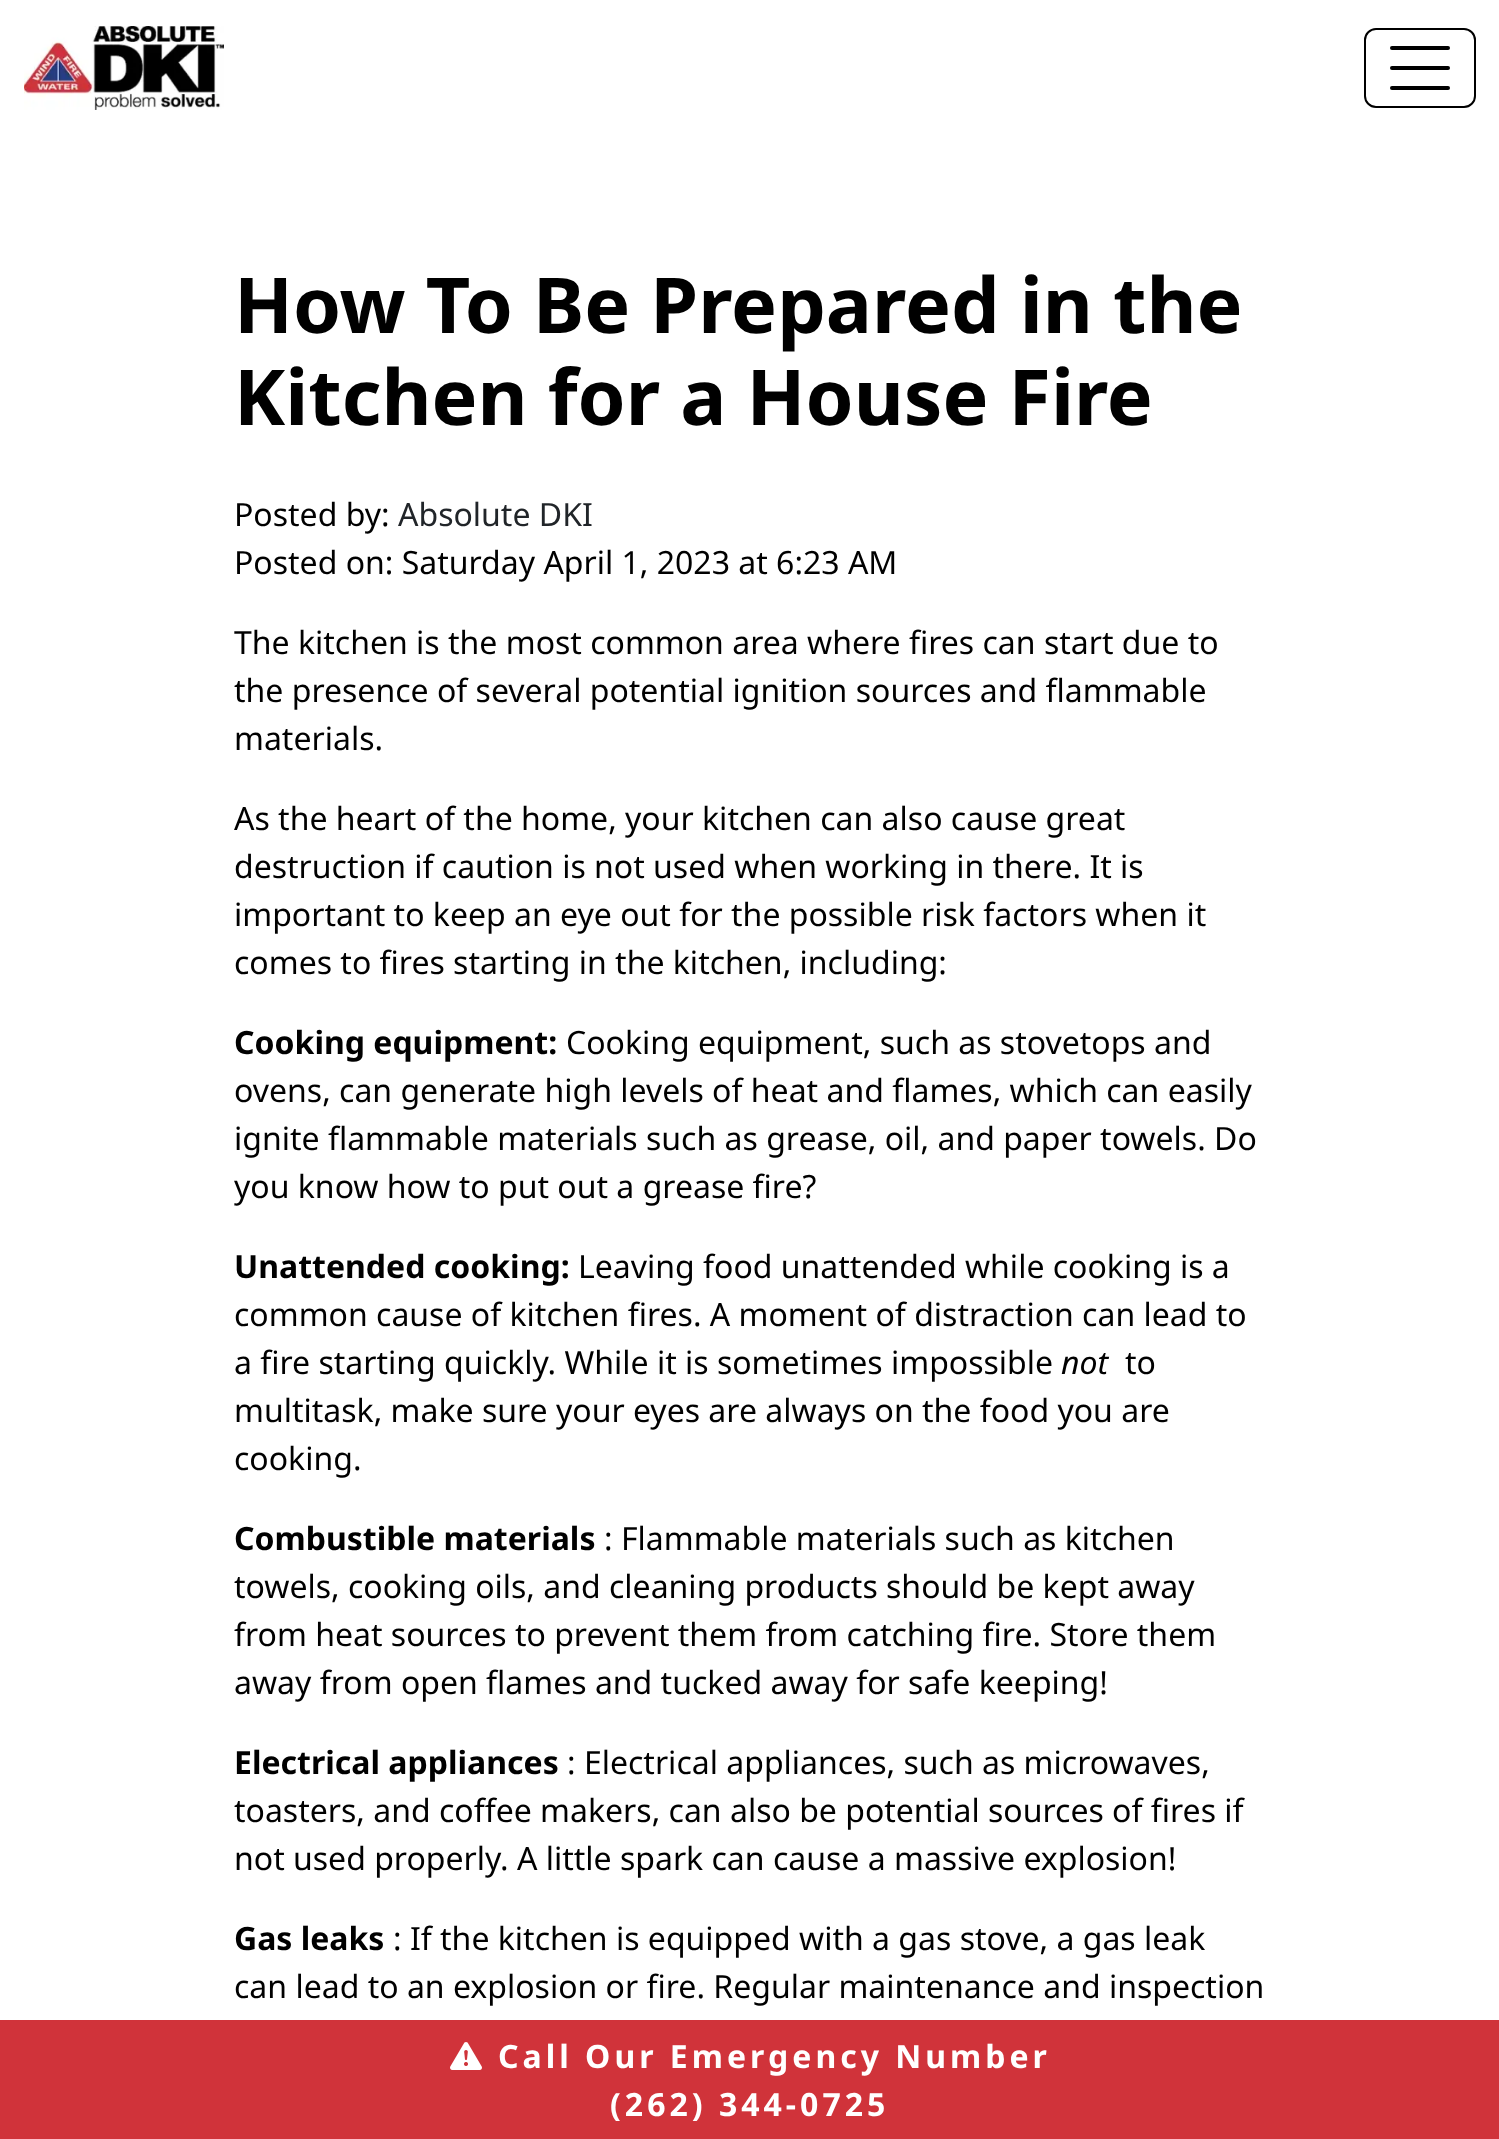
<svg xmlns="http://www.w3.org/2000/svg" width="1499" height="2139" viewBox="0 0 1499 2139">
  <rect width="100%" height="100%" fill="rgb(255,255,255)"/>
  <g font-family="Noto Sans" font-size="77.1" font-weight="bold" fill="rgb(0,0,0)">
    <text>
      <tspan x="234" y="333">How To Be Prepared in the</tspan>
      <tspan x="234" y="425">Kitchen for a House Fire</tspan>
    </text>
  </g>
  <text x="234" y="526" font-family="Noto Sans" font-size="32" fill="rgb(0,0,0)">Posted by:</text>
  <text x="398" y="526" font-family="Noto Sans" font-size="32" fill="rgb(33,37,41)">Absolute DKI</text>
  <g font-family="Noto Sans" font-size="32" fill="rgb(0,0,0)">
    <text x="234" y="574">Posted on: Saturday April 1, 2023 at 6:23 AM</text>
    <text>
      <tspan x="234" y="654">The kitchen is the most common area where fires can start due to</tspan>
      <tspan x="234" y="702">the presence of several potential ignition sources and flammable</tspan>
      <tspan x="234" y="750">materials.</tspan>
    </text>
    <text>
      <tspan x="234" y="830">As the heart of the home, your kitchen can also cause great</tspan>
      <tspan x="234" y="878">destruction if caution is not used when working in there. It is</tspan>
      <tspan x="234" y="926">important to keep an eye out for the possible risk factors when it</tspan>
      <tspan x="234" y="974">comes to fires starting in the kitchen, including:</tspan>
    </text>
  </g>
  <text x="234" y="1054" font-family="Noto Sans" font-size="32" font-weight="bold" fill="rgb(0,0,0)">Cooking equipment:</text>
  <g font-family="Noto Sans" font-size="32" fill="rgb(0,0,0)">
    <text x="566" y="1054">Cooking equipment, such as stovetops and</text>
    <text>
      <tspan x="234" y="1102">ovens, can generate high levels of heat and flames, which can easily</tspan>
      <tspan x="234" y="1150">ignite flammable materials such as grease, oil, and paper towels. Do</tspan>
      <tspan x="234" y="1198">you know how to put out a grease fire?</tspan>
    </text>
  </g>
  <text x="234" y="1278" font-family="Noto Sans" font-size="32" font-weight="bold" fill="rgb(0,0,0)">Unattended cooking:</text>
  <g font-family="Noto Sans" font-size="32" fill="rgb(0,0,0)">
    <text x="578" y="1278">Leaving food unattended while cooking is a</text>
    <text>
      <tspan x="234" y="1326">common cause of kitchen fires. A moment of distraction can lead to</tspan>
      <tspan x="234" y="1374">a fire starting quickly. While it is sometimes impossible</tspan>
    </text>
  </g>
  <text x="1061" y="1374" font-family="Noto Sans" font-size="32" font-style="italic" fill="rgb(0,0,0)">not</text>
  <g font-family="Noto Sans" font-size="32" fill="rgb(0,0,0)">
    <text x="1125" y="1374">to</text>
    <text>
      <tspan x="234" y="1422">multitask, make sure your eyes are always on the food you are</tspan>
      <tspan x="234" y="1470">cooking.</tspan>
    </text>
  </g>
  <text x="234" y="1550" font-family="Noto Sans" font-size="32" font-weight="bold" fill="rgb(0,0,0)">Combustible materials</text>
  <g font-family="Noto Sans" font-size="32" fill="rgb(0,0,0)">
    <text x="604" y="1550">: Flammable materials such as kitchen</text>
    <text>
      <tspan x="234" y="1598">towels, cooking oils, and cleaning products should be kept away</tspan>
      <tspan x="234" y="1646">from heat sources to prevent them from catching fire. Store them</tspan>
      <tspan x="234" y="1694">away from open flames and tucked away for safe keeping!</tspan>
    </text>
  </g>
  <text x="234" y="1774" font-family="Noto Sans" font-size="32" font-weight="bold" fill="rgb(0,0,0)">Electrical appliances</text>
  <g font-family="Noto Sans" font-size="32" fill="rgb(0,0,0)">
    <text x="567" y="1774">: Electrical appliances, such as microwaves,</text>
    <text>
      <tspan x="234" y="1822">toasters, and coffee makers, can also be potential sources of fires if</tspan>
      <tspan x="234" y="1870">not used properly. A little spark can cause a massive explosion!</tspan>
    </text>
  </g>
  <text x="234" y="1950" font-family="Noto Sans" font-size="32" font-weight="bold" fill="rgb(0,0,0)">Gas leaks</text>
  <g font-family="Noto Sans" font-size="32" fill="rgb(0,0,0)">
    <text x="393" y="1950">: If the kitchen is equipped with a gas stove, a gas leak</text>
    <text x="234" y="1998">can lead to an explosion or fire. Regular maintenance and inspection</text>
  </g>
  <image x="24" y="26" width="200" height="84" href="pic1.png"/>
  <rect x="1365" y="29" width="110" height="78" rx="11" fill="none" stroke="rgb(0,0,0)" stroke-width="2"/>
  <rect x="1390" y="46" width="60" height="4" rx="2" fill="rgb(0,0,0)"/>
  <rect x="1390" y="66" width="60" height="4" rx="2" fill="rgb(0,0,0)"/>
  <rect x="1390" y="86" width="60" height="4" rx="2" fill="rgb(0,0,0)"/>
  <rect x="0" y="2020" width="1499" height="119" fill="rgb(208,51,58)"/>
  <image x="450" y="2042" width="32" height="28" href="pic2.png"/>
  <g font-family="Noto Sans" font-size="32" font-weight="bold" letter-spacing="4" fill="rgb(255,255,255)">
    <text x="498" y="2068">Call Our Emergency Number</text>
    <text x="610" y="2116">(262) 344-0725</text>
  </g>
</svg>
